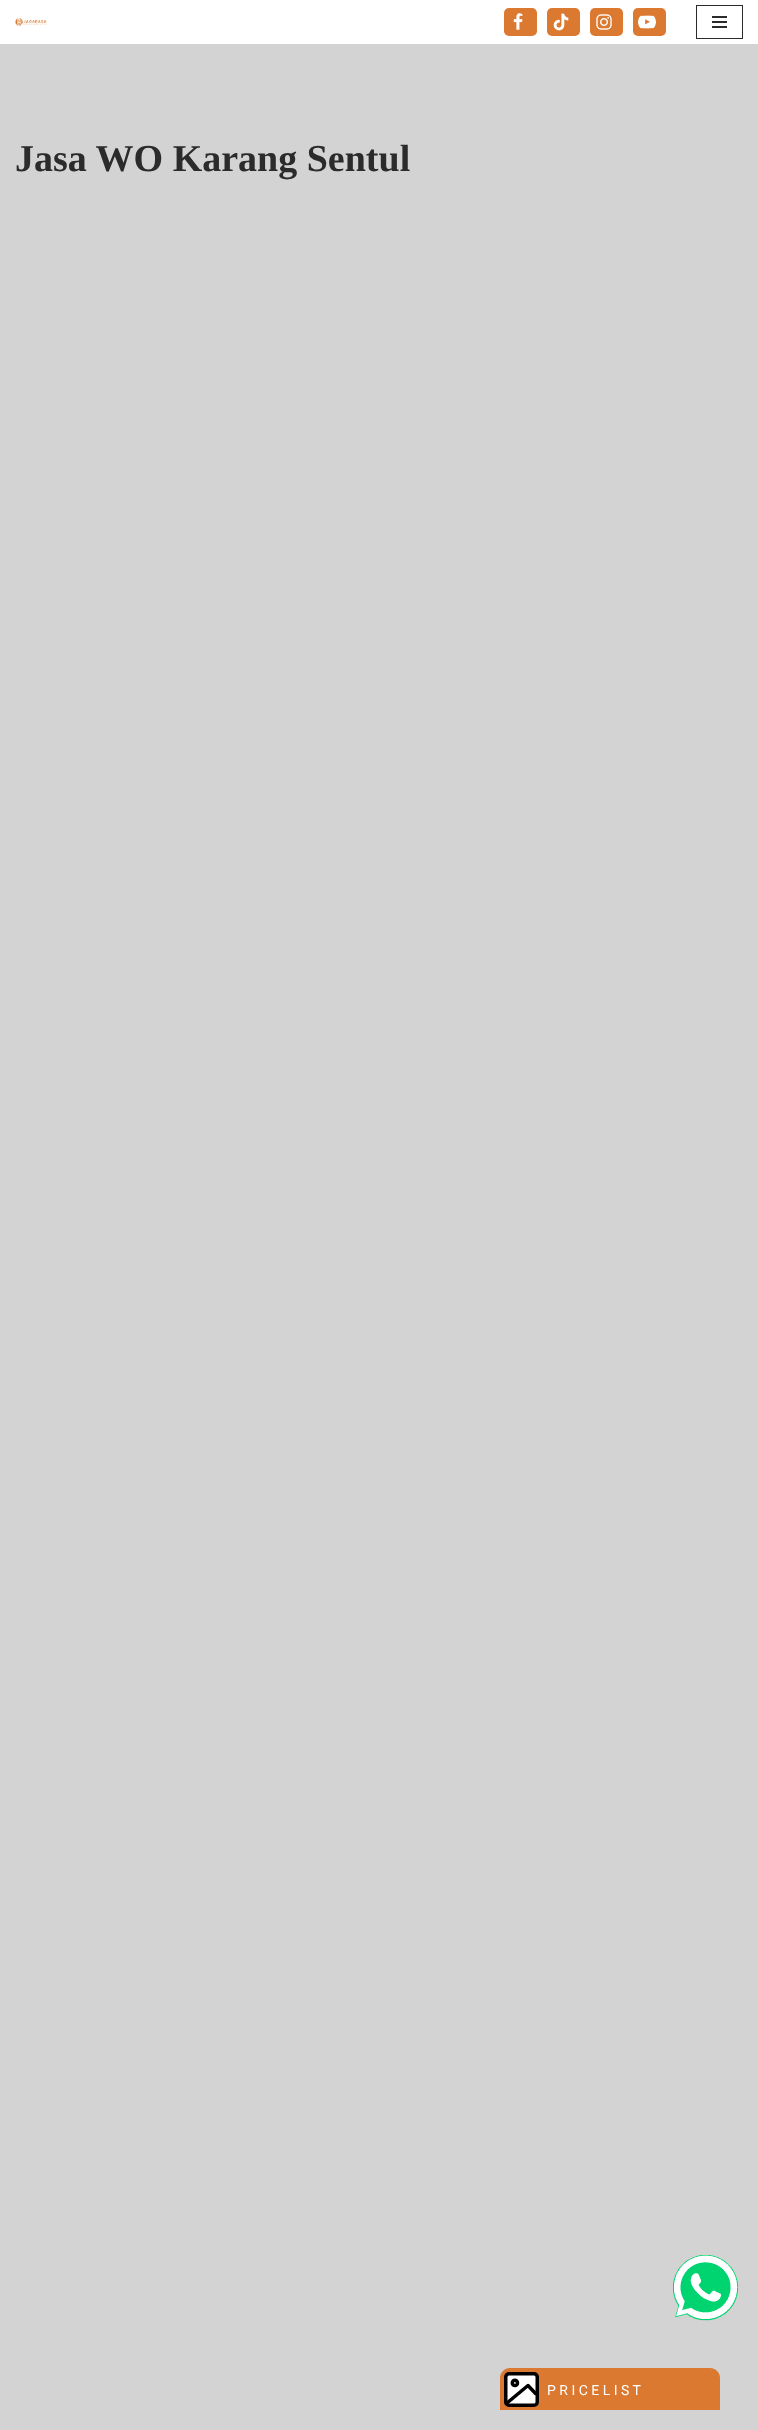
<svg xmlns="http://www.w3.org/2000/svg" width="758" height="2430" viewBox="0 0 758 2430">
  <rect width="100%" height="100%" fill="rgb(211,211,211)"/>
  <rect x="0" y="0" width="758" height="44" fill="rgb(255,255,255)"/>
  <image x="15" y="18" width="32" height="8" href="pic1.png"/>
  <rect x="504" y="8" width="33" height="28" rx="5" fill="rgb(219,121,48)"/>
  <image x="513" y="13" width="10" height="17" href="pic2.png"/>
  <rect x="547" y="8" width="33" height="28" rx="5" fill="rgb(219,121,48)"/>
  <image x="553" y="13" width="16" height="18" href="pic3.png"/>
  <rect x="590" y="8" width="33" height="28" rx="5" fill="rgb(219,121,48)"/>
  <image x="596" y="14" width="16" height="16" href="pic4.png"/>
  <rect x="633" y="8" width="33" height="28" rx="5" fill="rgb(219,121,48)"/>
  <image x="638" y="15" width="18" height="14" href="pic5.png"/>
  <rect x="696.5" y="5.5" width="46" height="33" fill="none" stroke="rgb(43,43,43)"/>
  <rect x="712" y="16" width="15" height="2" fill="rgb(43,43,43)"/>
  <rect x="712" y="21" width="15" height="2" fill="rgb(43,43,43)"/>
  <rect x="712" y="26" width="15" height="2" fill="rgb(43,43,43)"/>
  <text x="15" y="171" font-family="Liberation Serif" font-size="38" font-weight="bold" fill="rgb(43,43,43)">Jasa WO Karang Sentul</text>
  <image x="673" y="2255" width="65" height="66" href="pic6.png"/>
  <path d="M510 2368H710C715.5 2368 720 2372.5 720 2378V2410H500V2378C500 2372.5 504.5 2368 510 2368Z" fill="rgb(219,121,48)"/>
  <rect x="505.75" y="2373.75" width="31.5" height="31.5" rx="3.25" fill="rgb(255,255,255)" stroke="rgb(0,0,0)" stroke-width="3.5"/>
  <circle cx="514.9" cy="2382.9" r="2.6" fill="none" stroke="rgb(0,0,0)" stroke-width="3.5"/>
  <path d="M535.5 2393.5L528 2385.5L507 2403" fill="rgb(255,255,255)" stroke="rgb(0,0,0)" stroke-width="3.5" stroke-linecap="round" stroke-linejoin="round"/>
  <text x="547" y="2395" font-family="Roboto" font-size="14" fill="rgb(255,255,255)">P R I C E L I S T</text>
</svg>
